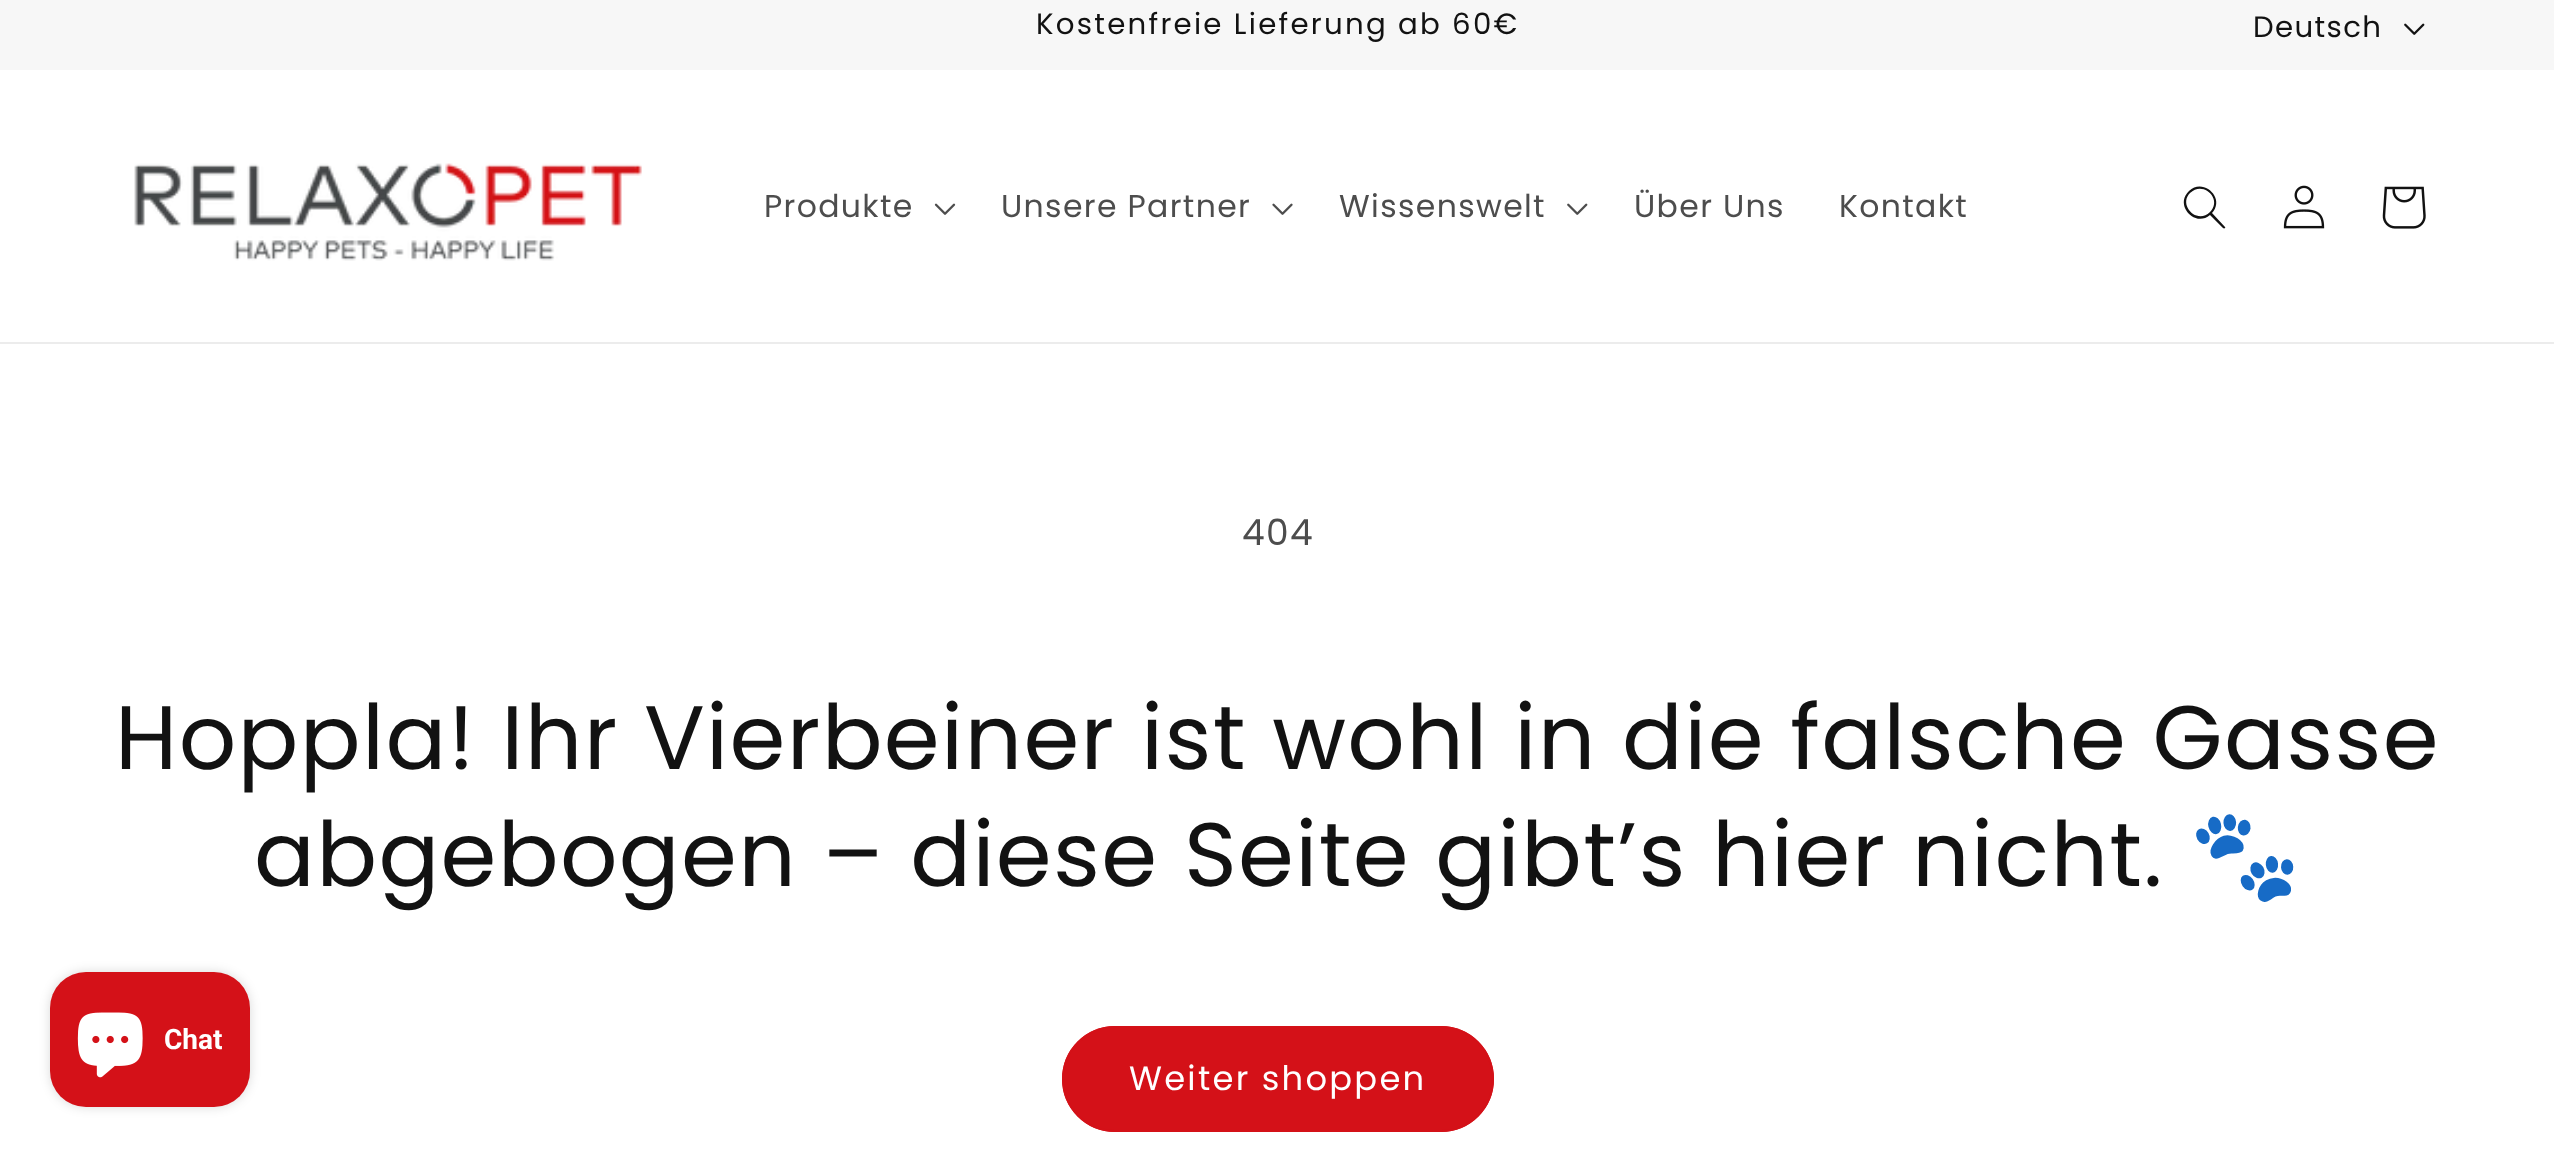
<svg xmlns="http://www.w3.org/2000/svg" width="2554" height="1154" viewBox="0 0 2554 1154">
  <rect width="100%" height="100%" fill="rgb(255,255,255)"/>
  <rect x="0" y="0" width="2554" height="70" fill="rgb(247,247,247)"/>
  <text x="1036" y="34" font-family="Poppins" font-size="29.25" letter-spacing="2.25" fill="rgb(18,18,18)">Kostenfreie Lieferung ab 60€</text>
  <text x="2253" y="37" font-family="Poppins" font-size="29.25" letter-spacing="1.35" fill="rgb(18,18,18)">Deutsch</text>
  <image x="2404" y="23" width="21" height="12" href="pic1.png"/>
  <rect x="0" y="342" width="2554" height="2" fill="rgb(236,236,236)"/>
  <image x="134" y="163" width="508" height="98" href="pic2.png"/>
  <text x="764" y="217" font-family="Poppins" font-size="31.5" letter-spacing="1.35" fill="rgb(77,77,77)">Produkte</text>
  <image x="934" y="203" width="22" height="12" href="pic3.png"/>
  <text x="1001" y="217" font-family="Poppins" font-size="31.5" letter-spacing="1.35" fill="rgb(77,77,77)">Unsere Partner</text>
  <image x="1272" y="203" width="21" height="12" href="pic4.png"/>
  <text x="1339" y="217" font-family="Poppins" font-size="31.5" letter-spacing="1.35" fill="rgb(77,77,77)">Wissenswelt</text>
  <image x="1567" y="203" width="21" height="12" href="pic5.png"/>
  <g font-family="Poppins" font-size="31.5" letter-spacing="1.35" fill="rgb(77,77,77)">
    <text x="1634" y="217">Über Uns</text>
    <text x="1839" y="217">Kontakt</text>
  </g>
  <path d="M2210 212C2197 225 2178 205 2190 193C2203 180 2223 199 2210 212M2210 215C2195 228 2174 205 2189 191C2203 177 2226 198 2212 213L2225 227C2226 228 2224 229 2223 228Z" fill="rgb(18,18,18)" fill-rule="evenodd"/>
  <image x="2283" y="185" width="42" height="44" href="pic6.png"/>
  <image x="2382" y="186" width="44" height="43" href="pic7.png"/>
  <text x="1242" y="545" font-family="Poppins" font-size="36" letter-spacing="1.35" fill="rgb(77,77,77)">404</text>
  <g font-family="Poppins" font-size="90" letter-spacing="1.35" fill="rgb(18,18,18)">
    <text x="115" y="769">Hoppla! Ihr Vierbeiner ist wohl in die falsche Gasse</text>
    <text x="254" y="886">abgebogen – diese Seite gibt’s hier nicht.</text>
  </g>
  <text x="2189" y="886" font-family="Noto Color Emoji" font-size="90" letter-spacing="1.35" fill="rgb(18,18,18)">🐾</text>
  <rect x="1062" y="1026" width="432" height="106" rx="53" fill="rgb(212,17,24)"/>
  <rect x="1063" y="1027" width="430" height="104" rx="52" fill="none" stroke="rgb(212,17,24)" stroke-width="2"/>
  <text x="1129" y="1090" font-family="Poppins" font-size="33.75" letter-spacing="2.25" fill="rgb(255,255,255)">Weiter shoppen</text>
  <rect x="50" y="972" width="200" height="135" rx="36" fill="rgba(0,0,0,0.15)" filter="blur(5.5px)"/>
  <rect x="50" y="972" width="200" height="135" rx="36" fill="rgb(212,17,24)"/>
  <image x="77" y="1012" width="66" height="66" href="pic8.png"/>
  <text x="164" y="1049" font-family="Roboto" font-size="28" font-weight="bold" fill="rgb(255,255,255)">Chat</text>
</svg>
